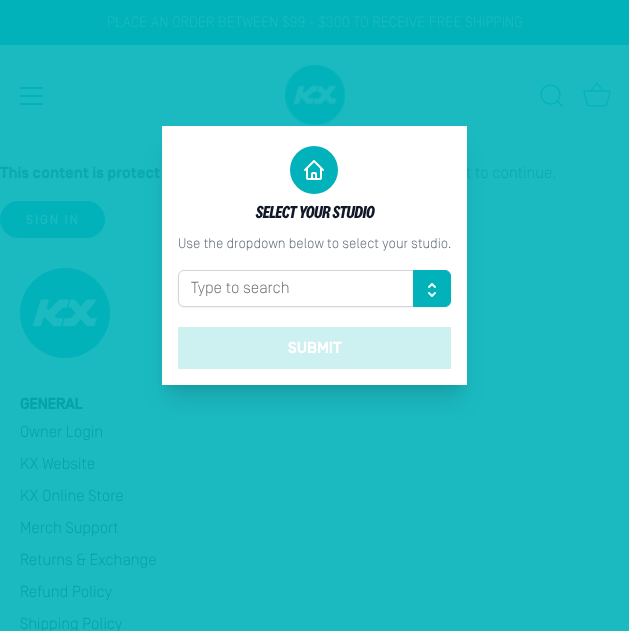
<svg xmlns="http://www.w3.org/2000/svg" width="629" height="631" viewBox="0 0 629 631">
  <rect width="100%" height="100%" fill="rgb(27,186,193)"/>
  <rect x="0" y="0" width="629" height="45" fill="rgb(2,178,186)"/>
  <text x="107" y="27" font-family="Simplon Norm" font-size="15" font-weight="300" fill="rgb(27,186,193)">PLACE AN ORDER BETWEEN $99 - $300 TO RECEIVE FREE SHIPPING</text>
  <rect x="20" y="87" width="23" height="2" fill="rgb(2,178,186)"/>
  <rect x="20" y="95" width="23" height="2" fill="rgb(2,178,186)"/>
  <rect x="20" y="103" width="23" height="2" fill="rgb(2,178,186)"/>
  <image x="285" y="65" width="60" height="60" href="pic1.png"/>
  <circle cx="550.5" cy="94.5" r="9.5" fill="none" stroke="rgb(2,178,186)" stroke-width="1.2"/>
  <path d="M562.5 106.5L557 101" fill="none" stroke="rgb(2,178,186)" stroke-width="1.2" stroke-linecap="round" stroke-linejoin="round"/>
  <image x="583" y="82" width="28" height="25" href="pic2.png"/>
  <text x="0" y="178" font-family="Simplon Norm" font-size="16" font-weight="bold" fill="rgb(10,169,176)">This content is protect</text>
  <text x="466" y="178" font-family="Simplon Norm" font-size="16" font-weight="300" fill="rgb(10,169,176)">t to continue.</text>
  <rect x="0.5" y="201.5" width="104" height="36" rx="18" fill="rgb(2,178,186)" stroke="rgb(2,178,186)"/>
  <text x="26" y="224" font-family="Simplon Norm" font-size="13" font-weight="500" letter-spacing="1.75" fill="rgb(27,186,193)">SIGN IN</text>
  <rect x="168" y="140" width="293" height="247" fill="rgba(0,0,0,0.1)" filter="blur(5px)"/>
  <rect x="167" y="151" width="295" height="249" fill="rgba(0,0,0,0.1)" filter="blur(12.5px)"/>
  <rect x="162" y="126" width="305" height="259" fill="rgb(255,255,255)"/>
  <circle cx="314" cy="170" r="24" fill="rgb(2,178,186)"/>
  <image x="304" y="160" width="20" height="20" href="pic3.png"/>
  <text x="255" y="218" font-family="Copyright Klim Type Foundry" font-size="18" font-weight="bold" font-style="italic" letter-spacing="-0.5" fill="rgb(17,24,39)">SELECT YOUR STUDIO</text>
  <text x="178" y="248" font-family="Simplon Norm" font-size="14" font-weight="300" fill="rgb(107,114,128)">Use the dropdown below to select your studio.</text>
  <rect x="178" y="271" width="273" height="37" rx="6" fill="rgba(0,0,0,0.05)" filter="blur(1px)"/>
  <rect x="178.5" y="270.5" width="272" height="36" rx="5.5" fill="rgb(255,255,255)" stroke="rgb(209,213,219)"/>
  <text x="191" y="293" font-family="Simplon Norm" font-size="16" font-weight="300" fill="rgb(117,117,117)">Type to search</text>
  <path d="M413.5 270.5H445C448 270.5 450.5 273 450.5 276V301C450.5 304 448 306.5 445 306.5H413.5Z" fill="rgb(2,178,186)" stroke="rgb(2,178,186)"/>
  <image x="428" y="283" width="8" height="14" href="pic4.png"/>
  <rect x="178" y="327" width="273" height="42" fill="rgb(205,240,241)"/>
  <text x="288" y="353" font-family="Simplon Norm" font-size="16" font-weight="bold" fill="rgb(255,255,255)">SUBMIT</text>
  <image x="20" y="268" width="90" height="90" href="pic5.png"/>
  <text x="20" y="409" font-family="Simplon Norm" font-size="16" font-weight="bold" letter-spacing="-0.5" fill="rgb(4,162,169)">GENERAL</text>
  <g font-family="Simplon Norm" font-size="16" font-weight="300" fill="rgb(4,162,169)">
    <text x="20" y="437">Owner Login</text>
    <text x="20" y="469">KX Website</text>
    <text x="20" y="501">KX Online Store</text>
    <text x="20" y="533">Merch Support</text>
    <text x="20" y="565">Returns &amp; Exchange</text>
    <text x="20" y="597">Refund Policy</text>
    <text x="20" y="629">Shipping Policy</text>
  </g>
</svg>
